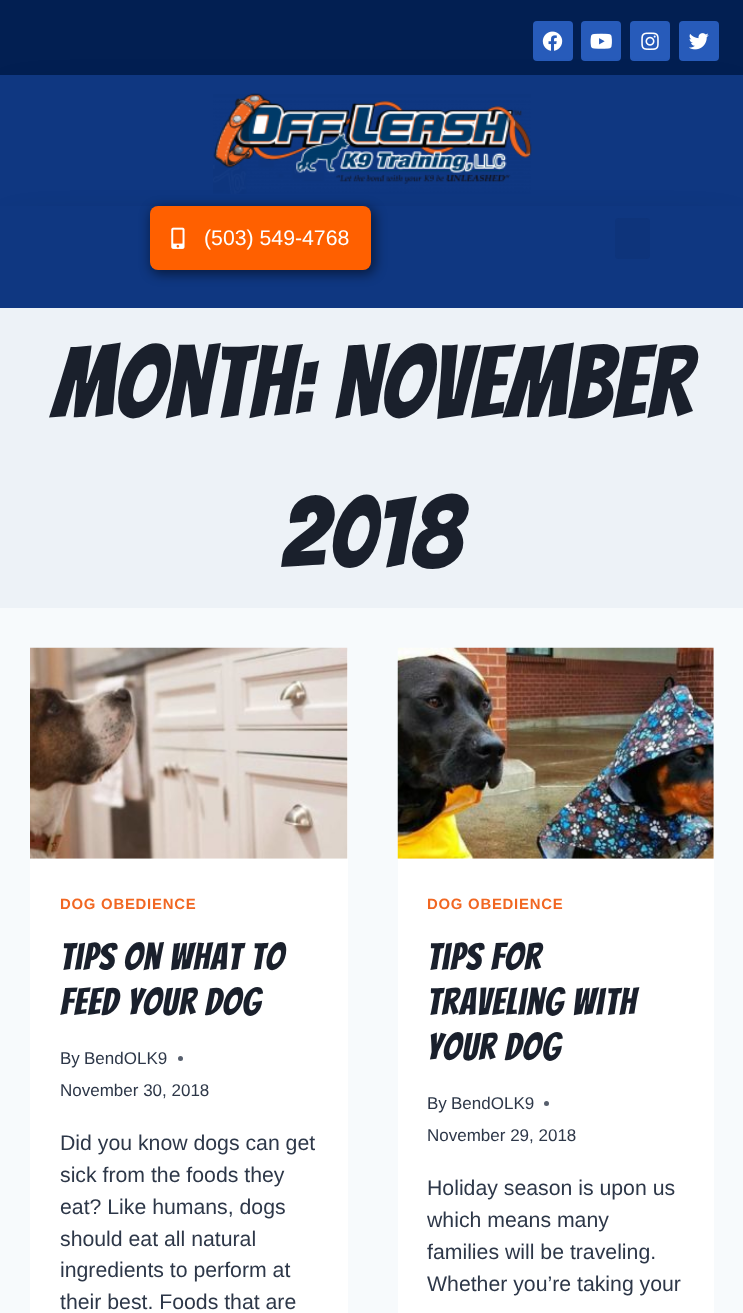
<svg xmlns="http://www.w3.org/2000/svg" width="743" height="1313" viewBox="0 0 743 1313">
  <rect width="100%" height="100%" fill="rgb(247,250,252)"/>
  <rect x="0" y="0" width="743" height="75" fill="rgb(2,31,82)"/>
  <rect x="533" y="21" width="40" height="40" rx="4" fill="rgb(39,91,186)"/>
  <image x="542" y="31" width="21" height="20" href="pic1.png"/>
  <rect x="581" y="21" width="40" height="40" rx="4" fill="rgb(39,91,186)"/>
  <image x="590" y="33" width="22" height="16" href="pic2.png"/>
  <rect x="630" y="21" width="40" height="40" rx="4" fill="rgb(39,91,186)"/>
  <image x="641" y="32" width="18" height="18" href="pic3.png"/>
  <rect x="679" y="21" width="40" height="40" rx="4" fill="rgb(39,91,186)"/>
  <image x="689" y="33" width="20" height="17" href="pic4.png"/>
  <rect x="20" y="115" width="704" height="91" fill="rgba(0,0,0,0.63)" filter="blur(24px)"/>
  <rect x="0" y="75" width="743" height="131" fill="rgb(15,55,129)"/>
  <image x="213" y="93" width="319" height="101" href="pic5.png"/>
  <rect x="20" y="246" width="704" height="62" fill="rgba(0,0,0,0.63)" filter="blur(24px)"/>
  <rect x="0" y="206" width="743" height="102" fill="rgb(15,55,129)"/>
  <rect x="151" y="208" width="224" height="66" rx="9" fill="rgba(0,0,0,0.5)" filter="blur(6px)"/>
  <rect x="150" y="206" width="221" height="64" rx="8" fill="rgb(255,96,0)"/>
  <image x="171" y="227" width="14" height="22" href="pic6.png"/>
  <text x="204" y="245" font-family="Liberation Sans" font-size="21.25" fill="rgb(255,255,255)">(503) 549-4768</text>
  <rect x="615" y="218" width="35" height="41" rx="4" fill="rgb(14,52,123)"/>
  <rect x="0" y="308" width="743" height="300" fill="rgb(237,242,247)"/>
  <g font-family="Bangers" font-size="100" letter-spacing="1" fill="rgb(26,32,44)">
    <text x="52" y="418">Month: November</text>
    <text x="281" y="568">2018</text>
  </g>
  <rect x="30" y="648" width="318" height="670" rx="5" fill="rgb(255,255,255)"/>
  <image x="30" y="647" width="318" height="212" href="pic7.png"/>
  <text x="60" y="909" font-family="Liberation Sans" font-size="14.9" font-weight="bold" letter-spacing="0.75" fill="rgb(241,103,34)">DOG OBEDIENCE</text>
  <g font-family="Bangers" font-size="37.5" letter-spacing="1" fill="rgb(26,32,44)">
    <text>
      <tspan x="60" y="970">Tips on What to</tspan>
      <tspan x="60" y="1015">Feed your Dog</tspan>
    </text>
  </g>
  <g font-family="Liberation Sans" font-size="17" fill="rgb(45,55,72)">
    <text x="60" y="1064">By</text>
    <text x="84" y="1064">BendOLK9</text>
  </g>
  <circle cx="180.5" cy="1058.5" r="2.5" fill="rgb(87,95,109)"/>
  <text x="60" y="1096" font-family="Liberation Sans" font-size="17" fill="rgb(45,55,72)">November 30, 2018</text>
  <g font-family="Liberation Sans" font-size="21.25" fill="rgb(45,55,72)">
    <text>
      <tspan x="60" y="1150">Did you know dogs can get</tspan>
      <tspan x="60" y="1182">sick from the foods they</tspan>
      <tspan x="60" y="1214">eat? Like humans, dogs</tspan>
      <tspan x="60" y="1246">should eat all natural</tspan>
      <tspan x="60" y="1277">ingredients to perform at</tspan>
      <tspan x="60" y="1309">their best. Foods that are</tspan>
    </text>
  </g>
  <rect x="398" y="648" width="316" height="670" rx="5" fill="rgb(255,255,255)"/>
  <image x="397" y="647" width="317" height="212" href="pic8.png"/>
  <text x="427" y="909" font-family="Liberation Sans" font-size="14.9" font-weight="bold" letter-spacing="0.75" fill="rgb(241,103,34)">DOG OBEDIENCE</text>
  <g font-family="Bangers" font-size="37.5" letter-spacing="1" fill="rgb(26,32,44)">
    <text>
      <tspan x="427" y="970">Tips for</tspan>
      <tspan x="427" y="1015">Traveling With</tspan>
      <tspan x="427" y="1060">Your Dog</tspan>
    </text>
  </g>
  <g font-family="Liberation Sans" font-size="17" fill="rgb(45,55,72)">
    <text x="427" y="1109">By</text>
    <text x="451" y="1109">BendOLK9</text>
  </g>
  <circle cx="546.5" cy="1103.5" r="2.5" fill="rgb(87,95,109)"/>
  <text x="427" y="1141" font-family="Liberation Sans" font-size="17" fill="rgb(45,55,72)">November 29, 2018</text>
  <g font-family="Liberation Sans" font-size="21.25" fill="rgb(45,55,72)">
    <text>
      <tspan x="427" y="1195">Holiday season is upon us</tspan>
      <tspan x="427" y="1227">which means many</tspan>
      <tspan x="427" y="1259">families will be traveling.</tspan>
      <tspan x="427" y="1291">Whether you’re taking your</tspan>
    </text>
  </g>
</svg>
